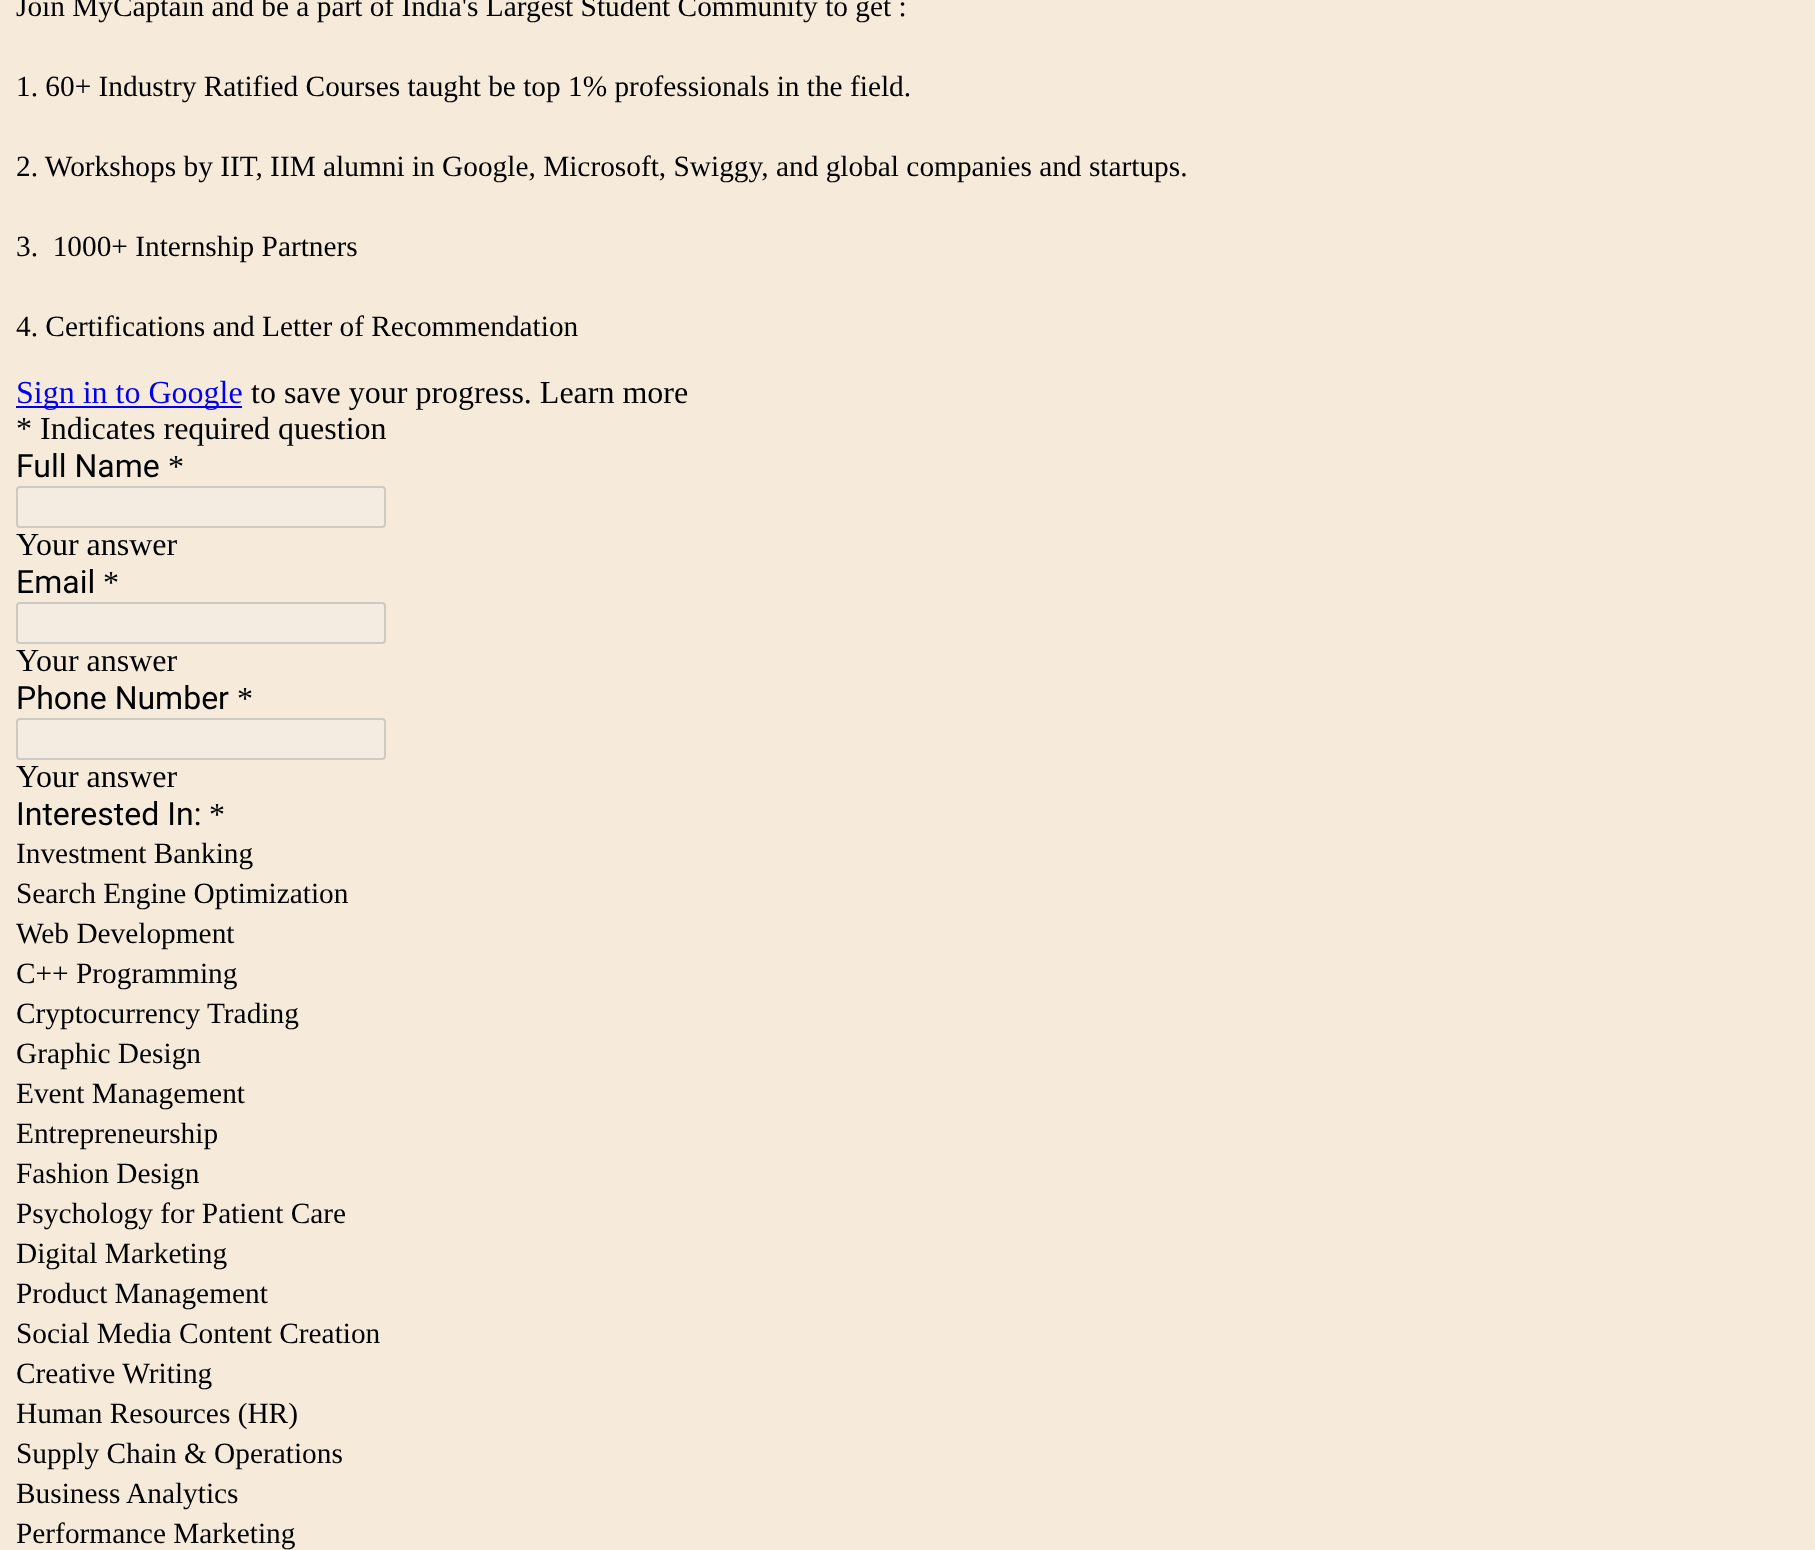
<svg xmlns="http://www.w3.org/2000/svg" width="1815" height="1550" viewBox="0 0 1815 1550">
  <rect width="100%" height="100%" fill="rgb(246,234,219)"/>
  <g font-family="Liberation Serif" font-size="29.35" fill="rgb(0,0,0)">
    <text x="16" y="16">Join MyCaptain and be a part of India's Largest Student Community to get :</text>
    <text x="16" y="96">1. 60+ Industry Ratified Courses taught be top 1% professionals in the field.</text>
    <text x="16" y="176">2. Workshops by IIT, IIM alumni in Google, Microsoft, Swiggy, and global companies and startups.</text>
    <text x="16" y="256" xml:space="preserve">3.  1000+ Internship Partners</text>
    <text x="16" y="336">4. Certifications and Letter of Recommendation</text>
  </g>
  <rect x="16" y="406" width="226" height="2" fill="rgb(0,0,238)"/>
  <text x="16" y="403" font-family="Liberation Serif" font-size="32" fill="rgb(0,0,238)">Sign in to Google</text>
  <g font-family="Liberation Serif" font-size="32" fill="rgb(0,0,0)">
    <text x="251" y="403">to save your progress. Learn more</text>
    <text x="16" y="439">* Indicates required question</text>
  </g>
  <text x="16" y="477" font-family="Roboto" font-size="32" fill="rgb(0,0,0)">Full Name</text>
  <text x="168" y="477" font-family="Liberation Serif" font-size="32" fill="rgb(0,0,0)">*</text>
  <rect x="17" y="487" width="368" height="40" rx="3" fill="rgb(244,236,225)" stroke="rgb(206,201,193)" stroke-width="2"/>
  <text x="16" y="555" font-family="Liberation Serif" font-size="32" fill="rgb(0,0,0)">Your answer</text>
  <text x="16" y="593" font-family="Roboto" font-size="32" fill="rgb(0,0,0)">Email</text>
  <text x="103" y="593" font-family="Liberation Serif" font-size="32" fill="rgb(0,0,0)">*</text>
  <rect x="17" y="603" width="368" height="40" rx="3" fill="rgb(244,236,225)" stroke="rgb(206,201,193)" stroke-width="2"/>
  <text x="16" y="671" font-family="Liberation Serif" font-size="32" fill="rgb(0,0,0)">Your answer</text>
  <text x="16" y="709" font-family="Roboto" font-size="32" fill="rgb(0,0,0)">Phone Number</text>
  <text x="237" y="709" font-family="Liberation Serif" font-size="32" fill="rgb(0,0,0)">*</text>
  <rect x="17" y="719" width="368" height="40" rx="3" fill="rgb(244,236,225)" stroke="rgb(206,201,193)" stroke-width="2"/>
  <text x="16" y="787" font-family="Liberation Serif" font-size="32" fill="rgb(0,0,0)">Your answer</text>
  <text x="16" y="825" font-family="Roboto" font-size="32" fill="rgb(0,0,0)">Interested In:</text>
  <text x="209" y="825" font-family="Liberation Serif" font-size="32" fill="rgb(0,0,0)">*</text>
  <g font-family="Liberation Serif" font-size="29.35" fill="rgb(0,0,0)">
    <text>
      <tspan x="16" y="863">Investment Banking</tspan>
      <tspan x="16" y="903">Search Engine Optimization</tspan>
      <tspan x="16" y="943">Web Development</tspan>
      <tspan x="16" y="983">C++ Programming</tspan>
      <tspan x="16" y="1023">Cryptocurrency Trading</tspan>
      <tspan x="16" y="1063">Graphic Design</tspan>
      <tspan x="16" y="1103">Event Management</tspan>
      <tspan x="16" y="1143">Entrepreneurship</tspan>
      <tspan x="16" y="1183">Fashion Design</tspan>
      <tspan x="16" y="1223">Psychology for Patient Care</tspan>
      <tspan x="16" y="1263">Digital Marketing</tspan>
      <tspan x="16" y="1303">Product Management</tspan>
      <tspan x="16" y="1343">Social Media Content Creation</tspan>
      <tspan x="16" y="1383">Creative Writing</tspan>
      <tspan x="16" y="1423">Human Resources (HR)</tspan>
      <tspan x="16" y="1463">Supply Chain &amp; Operations</tspan>
      <tspan x="16" y="1503">Business Analytics</tspan>
      <tspan x="16" y="1543">Performance Marketing</tspan>
    </text>
  </g>
</svg>
